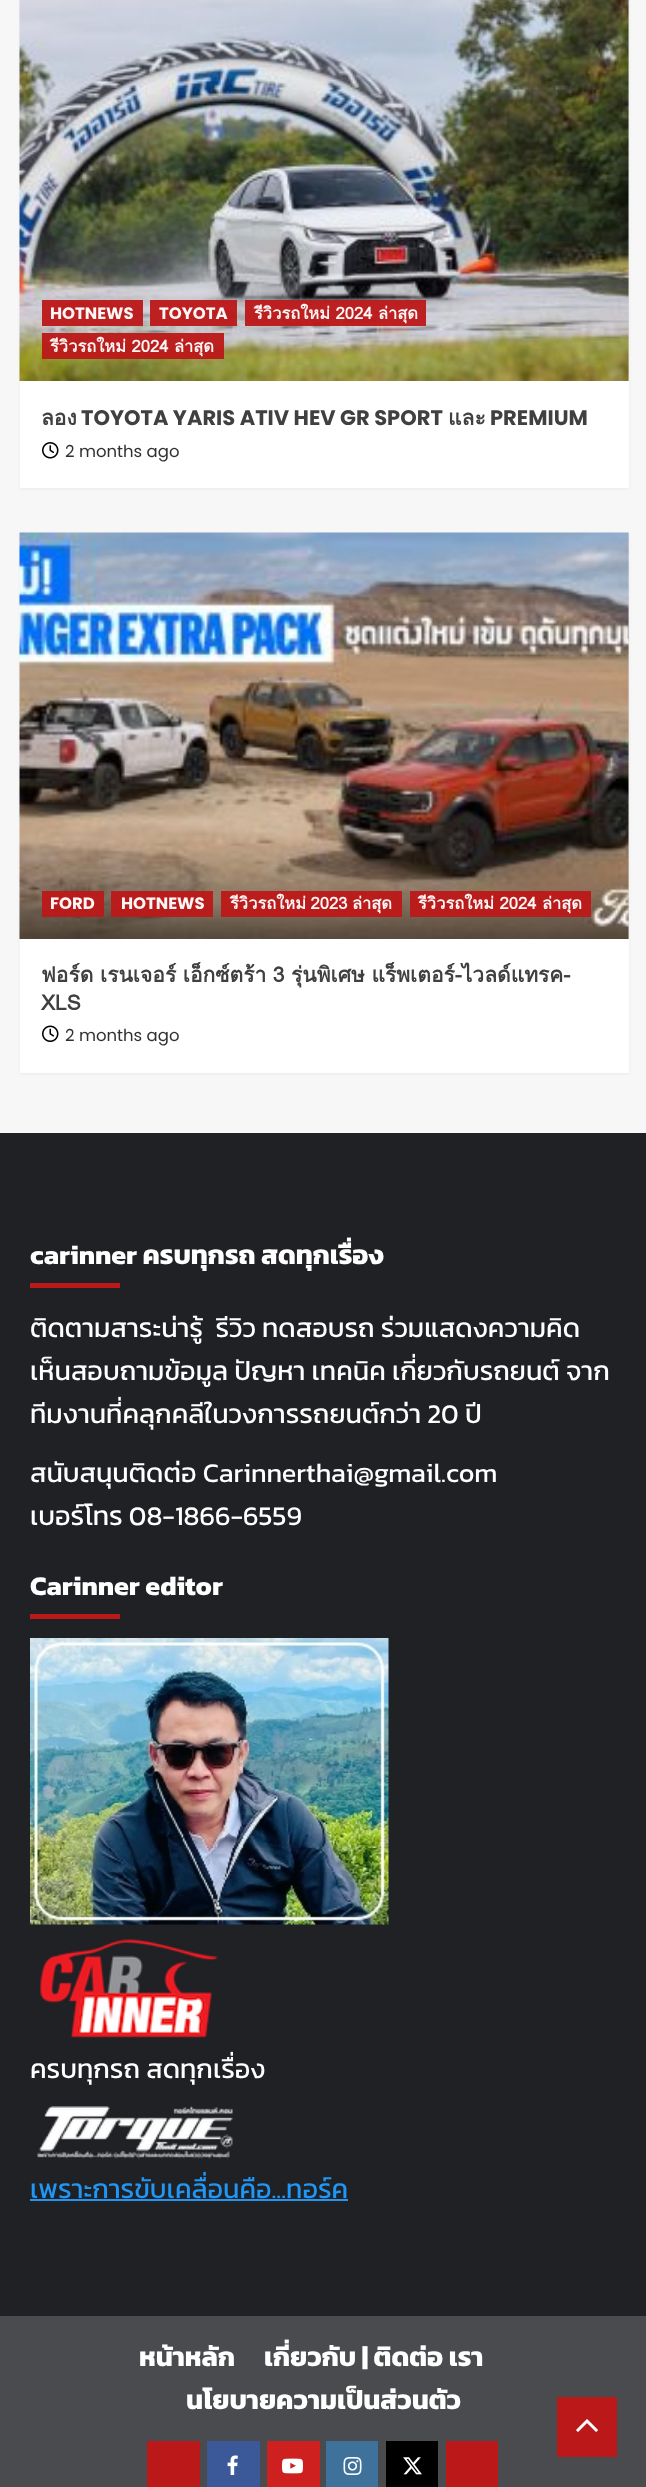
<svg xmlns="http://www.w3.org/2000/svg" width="646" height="2487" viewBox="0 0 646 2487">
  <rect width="100%" height="100%" fill="rgb(247,247,247)"/>
  <rect x="20" y="-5" width="609" height="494" fill="rgba(0,0,0,0.05)" filter="blur(1.5px)"/>
  <rect x="20" y="381" width="609" height="107" fill="rgb(255,255,255)"/>
  <rect x="628" y="0" width="1" height="381" fill="rgb(216,216,216)"/>
  <image x="19" y="0" width="610" height="381" href="pic1.png"/>
  <rect x="42" y="300" width="101" height="26" fill="rgba(187,25,25,0.96)"/>
  <text x="50" y="319" font-family="Poppins" font-size="16.5" font-weight="bold" fill="rgb(252,246,246)">HOTNEWS</text>
  <rect x="150" y="300" width="87" height="26" fill="rgba(187,25,25,0.96)"/>
  <text x="159" y="319" font-family="Poppins" font-size="16.5" font-weight="bold" fill="rgb(252,246,246)">TOYOTA</text>
  <rect x="245" y="300" width="181" height="26" fill="rgba(187,25,25,0.96)"/>
  <text x="254" y="319" font-family="Loma" font-size="16.5" font-weight="bold" fill="rgb(252,246,246)">รีวิวรถใหม่ 2024 ล่าสุด</text>
  <rect x="42" y="333" width="182" height="26" fill="rgba(187,25,25,0.96)"/>
  <text x="50" y="352" font-family="Loma" font-size="16.5" font-weight="bold" fill="rgb(252,246,246)">รีวิวรถใหม่ 2024 ล่าสุด</text>
  <text x="41" y="425" font-family="Loma" font-size="21" font-weight="bold" fill="rgb(64,64,64)">ลอง</text>
  <text x="81" y="425" font-family="Poppins" font-size="21" font-weight="bold" fill="rgb(64,64,64)">TOYOTA YARIS ATIV HEV GR SPORT</text>
  <text x="448" y="425" font-family="Loma" font-size="21" font-weight="bold" fill="rgb(64,64,64)">และ</text>
  <text x="490" y="425" font-family="Poppins" font-size="21" font-weight="bold" fill="rgb(64,64,64)">PREMIUM</text>
  <image x="42" y="442" width="17" height="17" href="pic2.png"/>
  <text x="65" y="457" font-family="Poppins" font-size="16.5" fill="rgb(48,48,48)">2 months ago</text>
  <rect x="20" y="534" width="609" height="540" fill="rgba(0,0,0,0.05)" filter="blur(1.5px)"/>
  <rect x="20" y="939" width="609" height="134" fill="rgb(255,255,255)"/>
  <rect x="628" y="533" width="1" height="406" fill="rgb(216,216,216)"/>
  <image x="19" y="532" width="610" height="407" href="pic3.png"/>
  <rect x="42" y="891" width="62" height="26" fill="rgba(187,25,25,0.96)"/>
  <text x="50" y="909" font-family="Poppins" font-size="16.5" font-weight="bold" fill="rgb(252,246,246)">FORD</text>
  <rect x="111" y="891" width="102" height="26" fill="rgba(187,25,25,0.96)"/>
  <text x="121" y="909" font-family="Poppins" font-size="16.5" font-weight="bold" fill="rgb(252,246,246)">HOTNEWS</text>
  <rect x="221" y="891" width="181" height="26" fill="rgba(187,25,25,0.96)"/>
  <text x="230" y="909" word-spacing="-1" font-family="Loma" font-size="16.5" font-weight="bold" fill="rgb(252,246,246)">รีวิวรถใหม่ 2023 ล่าสุด</text>
  <rect x="410" y="891" width="181" height="26" fill="rgba(187,25,25,0.96)"/>
  <text x="418" y="909" font-family="Loma" font-size="16.5" font-weight="bold" fill="rgb(252,246,246)">รีวิวรถใหม่ 2024 ล่าสุด</text>
  <g font-family="Loma" font-size="21" font-weight="bold" fill="rgb(64,64,64)">
    <text>
      <tspan x="41" y="982" word-spacing="-0.5">ฟอร์ด เรนเจอร์ เอ็กซ์ตร้า 3 รุ่นพิเศษ แร็พเตอร์-ไวลด์แทรค-</tspan>
      <tspan x="41" y="1010">XLS</tspan>
    </text>
  </g>
  <image x="42" y="1025" width="17" height="17" href="pic4.png"/>
  <text x="65" y="1041" font-family="Poppins" font-size="16.5" fill="rgb(48,48,48)">2 months ago</text>
  <rect x="0" y="1133" width="646" height="1183" fill="rgb(31,33,37)"/>
  <text x="30" y="1264" font-family="Kanit" font-size="27" font-weight="bold" fill="rgb(255,255,255)">carinner ครบทุกรถ สดทุกเรื่อง</text>
  <rect x="30" y="1283" width="90" height="5" fill="rgb(187,25,25)"/>
  <g font-family="Kanit" font-size="27" fill="rgb(255,255,255)">
    <text xml:space="preserve"><tspan x="30" y="1337">ติดตามสาระน่ารู้  รีวิว ทดสอบรถ ร่วมแสดงความคิด</tspan><tspan x="30" y="1380">เห็นสอบถามข้อมูล ปัญหา เทคนิค เกี่ยวกับรถยนต์ จาก</tspan><tspan x="30" y="1423">ทีมงานที่คลุกคลีในวงการรถยนต์กว่า 20 ปี</tspan></text>
    <text>
      <tspan x="30" y="1482">สนับสนุนติดต่อ Carinnerthai@gmail.com</tspan>
      <tspan x="30" y="1525">เบอร์โทร 08-1866-6559</tspan>
    </text>
  </g>
  <text x="30" y="1595" font-family="Kanit" font-size="27" font-weight="bold" fill="rgb(255,255,255)">Carinner editor</text>
  <rect x="30" y="1614" width="90" height="5" fill="rgb(187,25,25)"/>
  <image x="30" y="1638" width="359" height="287" href="pic5.png"/>
  <image x="39" y="1939" width="179" height="99" href="pic6.png"/>
  <text x="30" y="2078" font-family="Kanit" font-size="27" fill="rgb(255,255,255)">ครบทุกรถ สดทุกเรื่อง</text>
  <image x="37" y="2106" width="196" height="53" href="pic7.png"/>
  <text x="30" y="2198" font-family="Kanit" font-size="27" fill="rgb(33,150,243)">เพราะการขับเคลื่อนคือ...ทอร์ค</text>
  <rect x="30" y="2199" width="318" height="2" fill="rgb(33,150,243)"/>
  <rect x="0" y="2316" width="646" height="171" fill="rgb(73,75,78)"/>
  <g font-family="Kanit" font-size="27" font-weight="bold" fill="rgb(255,255,255)">
    <text x="139" y="2366">หน้าหลัก</text>
    <text x="264" y="2366">เกี่ยวกับ | ติดต่อ เรา</text>
    <text x="186" y="2409">นโยบายความเป็นส่วนตัว</text>
  </g>
  <rect x="147" y="2441" width="53" height="46" fill="rgb(187,25,25)"/>
  <rect x="207" y="2441" width="53" height="46" fill="rgb(59,89,153)"/>
  <image x="227" y="2455" width="11" height="20" href="pic8.png"/>
  <rect x="267" y="2441" width="53" height="46" fill="rgb(205,32,31)"/>
  <image x="282" y="2458" width="21" height="16" href="pic9.png"/>
  <rect x="326" y="2441" width="52" height="46" fill="rgb(63,114,155)"/>
  <image x="343" y="2457" width="19" height="18" href="pic10.png"/>
  <rect x="386" y="2441" width="52" height="46" fill="rgb(0,0,0)"/>
  <image x="403" y="2457" width="19" height="18" href="pic11.png"/>
  <rect x="446" y="2441" width="52" height="46" fill="rgb(187,25,25)"/>
  <rect x="557" y="2397" width="60" height="60" fill="rgb(187,25,25)"/>
  <image x="576" y="2419" width="22" height="13" href="pic12.png"/>
</svg>
